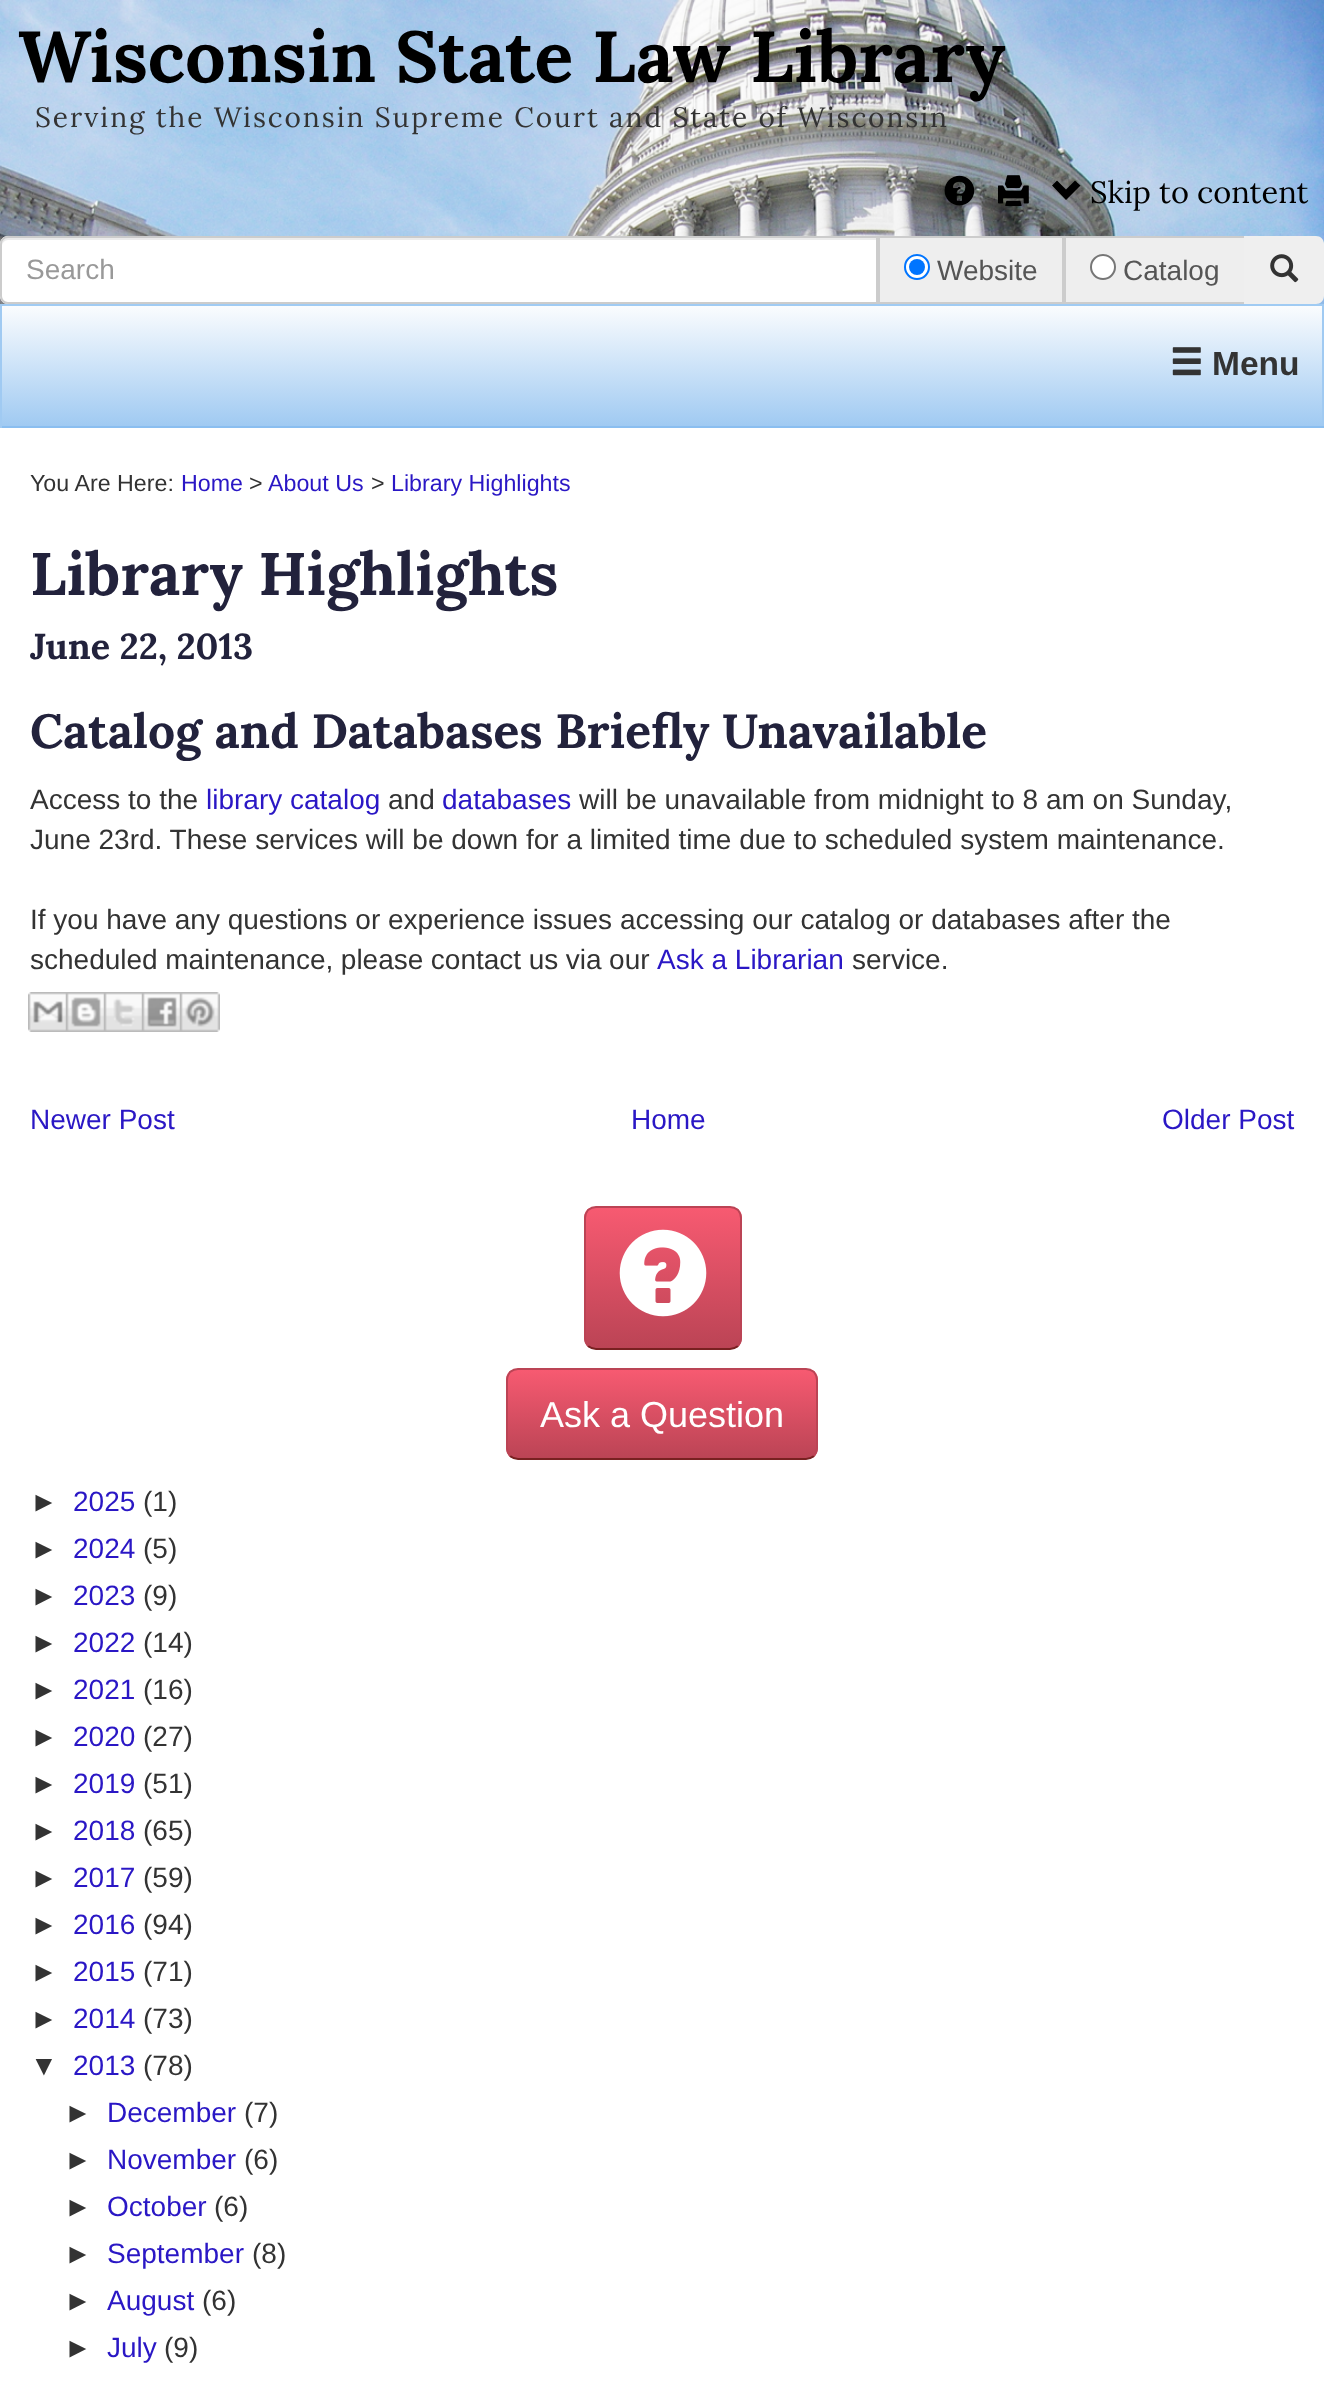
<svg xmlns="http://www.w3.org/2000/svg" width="1324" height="2386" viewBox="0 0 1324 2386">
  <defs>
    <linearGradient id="g1" gradientUnits="userSpaceOnUse" x1="662" y1="306" x2="662" y2="426"><stop offset="0" stop-color="rgb(250,252,254)"/><stop offset="1" stop-color="rgb(160,202,242)"/></linearGradient>
    <clipPath id="clip1"><rect x="584" y="1206" width="158" height="144" rx="12"/></clipPath>
    <linearGradient id="g2" gradientUnits="userSpaceOnUse" x1="663" y1="1208" x2="663" y2="1348"><stop offset="0" stop-color="rgb(247,90,113)"/><stop offset="1" stop-color="rgb(187,68,85)"/></linearGradient>
    <clipPath id="clip2"><rect x="506" y="1368" width="312" height="92" rx="12"/></clipPath>
    <linearGradient id="g3" gradientUnits="userSpaceOnUse" x1="662" y1="1370" x2="662" y2="1458"><stop offset="0" stop-color="rgb(247,90,113)"/><stop offset="1" stop-color="rgb(187,68,85)"/></linearGradient>
  </defs>
  <rect width="100%" height="100%" fill="rgb(255,255,255)"/>
  <image x="0" y="0" width="1324" height="304" href="pic1.png"/>
  <text x="18" y="82" font-family="Lora" font-size="72" font-weight="bold" fill="rgb(0,0,0)">Wisconsin State Law Library</text>
  <text x="35" y="127" font-family="Lora" font-size="28" letter-spacing="1.95" fill="rgb(51,51,51)">Serving the Wisconsin Supreme Court and State of Wisconsin</text>
  <image x="944" y="175" width="31" height="31" href="pic2.png"/>
  <image x="998" y="175" width="31" height="31" href="pic3.png"/>
  <path d="M1080.5 185.5L1066 200L1052 185.5L1057 180.5L1066 189.5L1075 180.5Z" fill="rgb(0,0,0)"/>
  <text x="1090" y="203" font-family="Lora" font-size="30.75" fill="rgb(0,0,0)">Skip to content</text>
  <path d="M8 236H878V304H8C3.5 304 0 300.5 0 296V244C0 239.5 3.5 236 8 236Z" fill="rgb(255,255,255)"/>
  <path d="M8 240H876V238H8C3 238 2 242 2 246C2 243 5 240 8 240Z" fill="rgb(236,236,236)"/>
  <path d="M8 237H877V303H8C4 303 1 300 1 296V244C1 240 4 237 8 237Z" fill="none" stroke="rgb(204,204,204)" stroke-width="2"/>
  <text x="26" y="279" font-family="Liberation Sans" font-size="28" fill="rgb(153,153,153)">Search</text>
  <rect x="879" y="237" width="184" height="66" fill="rgb(238,238,238)" stroke="rgb(204,204,204)" stroke-width="2"/>
  <circle cx="917" cy="267" r="12" fill="rgb(255,255,255)" stroke="rgb(0,117,255)" stroke-width="2"/>
  <circle cx="917" cy="267" r="8" fill="rgb(0,117,255)"/>
  <text x="937" y="280" font-family="Liberation Sans" font-size="28" fill="rgb(85,85,85)">Website</text>
  <rect x="1065" y="237" width="180" height="66" fill="rgb(238,238,238)" stroke="rgb(204,204,204)" stroke-width="2"/>
  <circle cx="1103" cy="267" r="12" fill="rgb(255,255,255)" stroke="rgb(118,118,118)" stroke-width="2"/>
  <text x="1123" y="280" font-family="Liberation Sans" font-size="28" fill="rgb(85,85,85)">Catalog</text>
  <path d="M1244 236H1316C1320.5 236 1324 239.5 1324 244V296C1324 300.5 1320.5 304 1316 304H1244Z" fill="rgb(239,239,239)"/>
  <image x="1270" y="254" width="29" height="29" href="pic4.png"/>
  <rect x="2" y="304" width="1320" height="2" fill="rgb(160,203,243)"/>
  <rect x="2" y="306" width="1320" height="120" fill="url(#g1)"/>
  <rect x="1322" y="304" width="2" height="124" fill="rgb(160,202,242)"/>
  <rect x="0" y="426" width="1324" height="2" fill="rgb(138,190,240)"/>
  <rect x="0" y="304" width="2" height="124" fill="rgb(160,202,242)"/>
  <image x="1172" y="347" width="29" height="29" href="pic5.png"/>
  <text x="1212" y="375" font-family="Liberation Sans" font-size="33.5" font-weight="bold" fill="rgb(51,51,51)">Menu</text>
  <text x="30" y="491" font-family="Liberation Sans" font-size="23.25" fill="rgb(51,51,51)">You Are Here:</text>
  <text x="181" y="491" font-family="Liberation Sans" font-size="23.25" fill="rgb(42,23,197)">Home</text>
  <text x="249" y="491" font-family="Liberation Sans" font-size="23.25" fill="rgb(51,51,51)">&gt;</text>
  <text x="268" y="491" font-family="Liberation Sans" font-size="23.25" fill="rgb(42,23,197)">About Us</text>
  <text x="371" y="491" font-family="Liberation Sans" font-size="23.25" fill="rgb(51,51,51)">&gt;</text>
  <text x="391" y="491" font-family="Liberation Sans" font-size="23.25" fill="rgb(42,23,197)">Library Highlights</text>
  <text x="30" y="595" font-family="Lora" font-size="60" font-weight="bold" fill="rgb(34,34,60)">Library Highlights</text>
  <text x="30" y="659" font-family="Lora" font-size="36" font-weight="bold" fill="rgb(34,34,60)">June 22, 2013</text>
  <text x="30" y="748" font-family="Lora" font-size="48" font-weight="bold" fill="rgb(34,34,60)">Catalog and Databases Briefly Unavailable</text>
  <text x="30" y="809" font-family="Liberation Sans" font-size="28" fill="rgb(51,51,51)">Access to the</text>
  <text x="206" y="809" font-family="Liberation Sans" font-size="28" fill="rgb(42,23,197)">library catalog</text>
  <text x="388" y="809" font-family="Liberation Sans" font-size="28" fill="rgb(51,51,51)">and</text>
  <text x="442" y="809" font-family="Liberation Sans" font-size="28" fill="rgb(42,23,197)">databases</text>
  <g font-family="Liberation Sans" font-size="28" fill="rgb(51,51,51)">
    <text x="579" y="809">will be unavailable from midnight to 8 am on Sunday,</text>
    <text x="30" y="849">June 23rd. These services will be down for a limited time due to scheduled system maintenance.</text>
    <text>
      <tspan x="30" y="929">If you have any questions or experience issues accessing our catalog or databases after the</tspan>
      <tspan x="30" y="969" word-spacing="-0.25">scheduled maintenance, please contact us via our</tspan>
    </text>
  </g>
  <text x="657" y="969" font-family="Liberation Sans" font-size="28" fill="rgb(42,23,197)">Ask a Librarian</text>
  <text x="852" y="969" font-family="Liberation Sans" font-size="28" fill="rgb(51,51,51)">service.</text>
  <image x="28" y="992" width="38" height="40" href="pic6.png"/>
  <image x="66" y="992" width="38" height="40" href="pic7.png"/>
  <image x="104" y="992" width="38" height="40" href="pic8.png"/>
  <image x="142" y="992" width="38" height="40" href="pic9.png"/>
  <image x="180" y="992" width="40" height="40" href="pic10.png"/>
  <g font-family="Liberation Sans" font-size="28" fill="rgb(42,23,197)">
    <text x="30" y="1129">Newer Post</text>
    <text x="631" y="1129">Home</text>
    <text x="1162" y="1129">Older Post</text>
  </g>
  <g clip-path="url(#clip1)">
    <rect x="584" y="1208" width="158" height="140" fill="url(#g2)"/>
  </g>
  <path d="M738 1346C735.5 1348 733 1349 730 1349H596C593 1349 590.5 1348 588 1346" fill="none" stroke="rgb(120,33,33)" stroke-width="2"/>
  <path d="M588 1346C586 1343.5 585 1341 585 1338V1218C585 1215 586 1212.5 588 1210C590.5 1208 593 1207 596 1207H730C733 1207 735.5 1208 738 1210C740 1212.5 741 1215 741 1218V1338C741 1341 740 1343.5 738 1346" fill="none" stroke="rgb(187,68,85)" stroke-width="2"/>
  <image x="619" y="1229" width="88" height="88" href="pic11.png"/>
  <g clip-path="url(#clip2)">
    <rect x="506" y="1370" width="312" height="88" fill="url(#g3)"/>
  </g>
  <path d="M814 1456C811.5 1458 809 1459 806 1459H518C515 1459 512.5 1458 510 1456" fill="none" stroke="rgb(120,33,33)" stroke-width="2"/>
  <path d="M510 1456C508 1453.5 507 1451 507 1448V1380C507 1377 508 1374.5 510 1372C512.5 1370 515 1369 518 1369H806C809 1369 811.5 1370 814 1372C816 1374.5 817 1377 817 1380V1448C817 1451 816 1453.5 814 1456" fill="none" stroke="rgb(187,68,85)" stroke-width="2"/>
  <text x="540" y="1427" font-family="Liberation Sans" font-size="36" fill="rgb(255,255,255)">Ask a Question</text>
  <text x="30" y="1511" font-family="Liberation Sans" font-size="28" fill="rgb(51,51,51)">►</text>
  <text x="73" y="1511" font-family="Liberation Sans" font-size="28" fill="rgb(42,23,197)">2025</text>
  <g font-family="Liberation Sans" font-size="28" fill="rgb(51,51,51)">
    <text x="143" y="1511">(1)</text>
    <text x="30" y="1558">►</text>
  </g>
  <text x="73" y="1558" font-family="Liberation Sans" font-size="28" fill="rgb(42,23,197)">2024</text>
  <g font-family="Liberation Sans" font-size="28" fill="rgb(51,51,51)">
    <text x="143" y="1558">(5)</text>
    <text x="30" y="1605">►</text>
  </g>
  <text x="73" y="1605" font-family="Liberation Sans" font-size="28" fill="rgb(42,23,197)">2023</text>
  <g font-family="Liberation Sans" font-size="28" fill="rgb(51,51,51)">
    <text x="143" y="1605">(9)</text>
    <text x="30" y="1652">►</text>
  </g>
  <text x="73" y="1652" font-family="Liberation Sans" font-size="28" fill="rgb(42,23,197)">2022</text>
  <g font-family="Liberation Sans" font-size="28" fill="rgb(51,51,51)">
    <text x="143" y="1652">(14)</text>
    <text x="30" y="1699">►</text>
  </g>
  <text x="73" y="1699" font-family="Liberation Sans" font-size="28" fill="rgb(42,23,197)">2021</text>
  <g font-family="Liberation Sans" font-size="28" fill="rgb(51,51,51)">
    <text x="143" y="1699">(16)</text>
    <text x="30" y="1746">►</text>
  </g>
  <text x="73" y="1746" font-family="Liberation Sans" font-size="28" fill="rgb(42,23,197)">2020</text>
  <g font-family="Liberation Sans" font-size="28" fill="rgb(51,51,51)">
    <text x="143" y="1746">(27)</text>
    <text x="30" y="1793">►</text>
  </g>
  <text x="73" y="1793" font-family="Liberation Sans" font-size="28" fill="rgb(42,23,197)">2019</text>
  <g font-family="Liberation Sans" font-size="28" fill="rgb(51,51,51)">
    <text x="143" y="1793">(51)</text>
    <text x="30" y="1840">►</text>
  </g>
  <text x="73" y="1840" font-family="Liberation Sans" font-size="28" fill="rgb(42,23,197)">2018</text>
  <g font-family="Liberation Sans" font-size="28" fill="rgb(51,51,51)">
    <text x="143" y="1840">(65)</text>
    <text x="30" y="1887">►</text>
  </g>
  <text x="73" y="1887" font-family="Liberation Sans" font-size="28" fill="rgb(42,23,197)">2017</text>
  <g font-family="Liberation Sans" font-size="28" fill="rgb(51,51,51)">
    <text x="143" y="1887">(59)</text>
    <text x="30" y="1934">►</text>
  </g>
  <text x="73" y="1934" font-family="Liberation Sans" font-size="28" fill="rgb(42,23,197)">2016</text>
  <g font-family="Liberation Sans" font-size="28" fill="rgb(51,51,51)">
    <text x="143" y="1934">(94)</text>
    <text x="30" y="1981">►</text>
  </g>
  <text x="73" y="1981" font-family="Liberation Sans" font-size="28" fill="rgb(42,23,197)">2015</text>
  <g font-family="Liberation Sans" font-size="28" fill="rgb(51,51,51)">
    <text x="143" y="1981">(71)</text>
    <text x="30" y="2028">►</text>
  </g>
  <text x="73" y="2028" font-family="Liberation Sans" font-size="28" fill="rgb(42,23,197)">2014</text>
  <g font-family="Liberation Sans" font-size="28" fill="rgb(51,51,51)">
    <text x="143" y="2028">(73)</text>
    <text x="30" y="2075">▼</text>
  </g>
  <text x="73" y="2075" font-family="Liberation Sans" font-size="28" fill="rgb(42,23,197)">2013</text>
  <g font-family="Liberation Sans" font-size="28" fill="rgb(51,51,51)">
    <text x="143" y="2075">(78)</text>
    <text x="64" y="2122">►</text>
  </g>
  <text x="107" y="2122" font-family="Liberation Sans" font-size="28" fill="rgb(42,23,197)">December</text>
  <g font-family="Liberation Sans" font-size="28" fill="rgb(51,51,51)">
    <text x="244" y="2122">(7)</text>
    <text x="64" y="2169">►</text>
  </g>
  <text x="107" y="2169" font-family="Liberation Sans" font-size="28" fill="rgb(42,23,197)">November</text>
  <g font-family="Liberation Sans" font-size="28" fill="rgb(51,51,51)">
    <text x="244" y="2169">(6)</text>
    <text x="64" y="2216">►</text>
  </g>
  <text x="107" y="2216" font-family="Liberation Sans" font-size="28" fill="rgb(42,23,197)">October</text>
  <g font-family="Liberation Sans" font-size="28" fill="rgb(51,51,51)">
    <text x="214" y="2216">(6)</text>
    <text x="64" y="2263">►</text>
  </g>
  <text x="107" y="2263" font-family="Liberation Sans" font-size="28" fill="rgb(42,23,197)">September</text>
  <g font-family="Liberation Sans" font-size="28" fill="rgb(51,51,51)">
    <text x="252" y="2263">(8)</text>
    <text x="64" y="2310">►</text>
  </g>
  <text x="107" y="2310" font-family="Liberation Sans" font-size="28" fill="rgb(42,23,197)">August</text>
  <g font-family="Liberation Sans" font-size="28" fill="rgb(51,51,51)">
    <text x="202" y="2310">(6)</text>
    <text x="64" y="2357">►</text>
  </g>
  <text x="107" y="2357" font-family="Liberation Sans" font-size="28" fill="rgb(42,23,197)">July</text>
  <text x="164" y="2357" font-family="Liberation Sans" font-size="28" fill="rgb(51,51,51)">(9)</text>
</svg>
